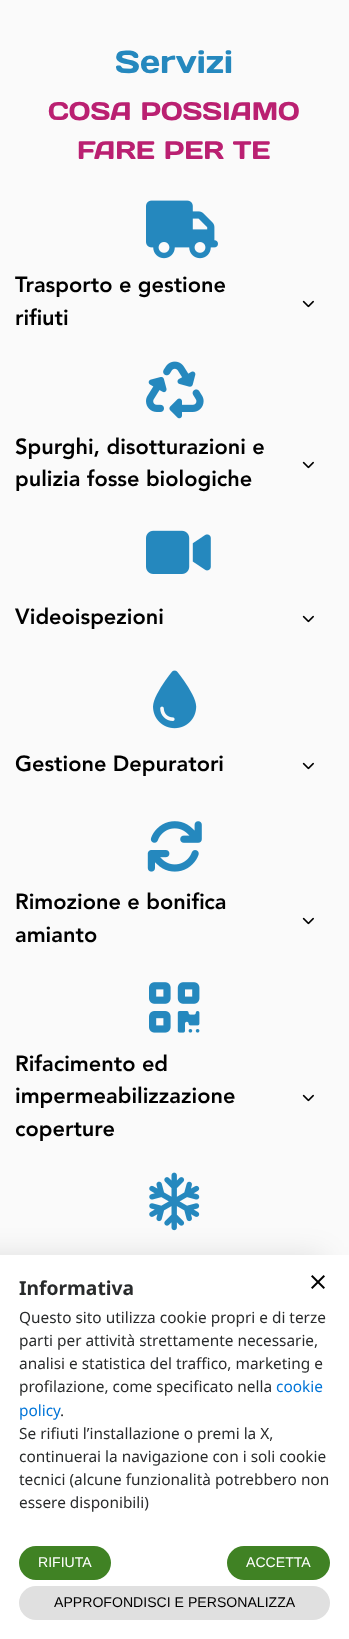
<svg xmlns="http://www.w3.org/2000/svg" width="349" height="1639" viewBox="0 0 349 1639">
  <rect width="100%" height="100%" fill="rgb(250,250,250)"/>
  <text x="115" y="73" font-family="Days" font-size="32" fill="rgb(37,136,190)">Servizi</text>
  <g font-family="Days" font-size="25.5" fill="rgb(186,32,113)">
    <text x="48" y="120">COSA POSSIAMO</text>
    <text x="77" y="159">FARE PER TE</text>
  </g>
  <image x="146" y="200" width="72" height="59" href="pic1.png"/>
  <g font-family="Avenir" font-size="21.75" font-weight="900" fill="rgb(0,0,0)">
    <text>
      <tspan x="15" y="292">Trasporto e gestione</tspan>
      <tspan x="15" y="325">rifiuti</tspan>
    </text>
  </g>
  <image x="302" y="300" width="12" height="8" href="pic2.png"/>
  <image x="146" y="361" width="58" height="58" href="pic3.png"/>
  <g font-family="Avenir" font-size="21.75" font-weight="900" fill="rgb(0,0,0)">
    <text>
      <tspan x="15" y="454">Spurghi, disotturazioni e</tspan>
      <tspan x="15" y="486">pulizia fosse biologiche</tspan>
    </text>
  </g>
  <image x="302" y="461" width="12" height="8" href="pic2.png"/>
  <image x="146" y="530" width="65" height="44" href="pic4.png"/>
  <text x="15" y="624" font-family="Avenir" font-size="21.75" font-weight="900" fill="rgb(0,0,0)">Videoispezioni</text>
  <image x="302" y="615" width="12" height="8" href="pic2.png"/>
  <image x="153" y="670" width="44" height="59" href="pic5.png"/>
  <text x="15" y="771" font-family="Avenir" font-size="21.75" font-weight="900" fill="rgb(0,0,0)">Gestione Depuratori</text>
  <image x="302" y="762" width="12" height="8" href="pic2.png"/>
  <image x="147" y="821" width="55" height="51" href="pic6.png"/>
  <g font-family="Avenir" font-size="21.75" font-weight="900" fill="rgb(0,0,0)">
    <text>
      <tspan x="15" y="909">Rimozione e bonifica</tspan>
      <tspan x="15" y="942">amianto</tspan>
    </text>
  </g>
  <image x="302" y="917" width="12" height="8" href="pic2.png"/>
  <image x="149" y="982" width="51" height="51" href="pic7.png"/>
  <g font-family="Avenir" font-size="21.75" font-weight="900" fill="rgb(0,0,0)">
    <text>
      <tspan x="15" y="1071">Rifacimento ed</tspan>
      <tspan x="15" y="1103">impermeabilizzazione</tspan>
      <tspan x="15" y="1136">coperture</tspan>
    </text>
  </g>
  <image x="302" y="1094" width="12" height="8" href="pic2.png"/>
  <image x="149" y="1172" width="51" height="59" href="pic8.png"/>
  <rect x="-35" y="1257" width="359" height="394" fill="rgba(0,0,0,0.12)" filter="blur(15px)"/>
  <rect x="0" y="1255" width="349" height="384" fill="rgb(255,255,255)"/>
  <text x="19" y="1295" font-family="Noto Sans" font-size="19.25" font-weight="bold" fill="rgb(41,43,44)">Informativa</text>
  <image x="311" y="1275" width="14" height="14" href="pic9.png"/>
  <g font-family="Noto Sans" font-size="15.4" fill="rgb(41,43,44)">
    <text>
      <tspan x="19" y="1323">Questo sito utilizza cookie propri e di terze</tspan>
      <tspan x="19" y="1346">parti per attività strettamente necessarie,</tspan>
      <tspan x="19" y="1369">analisi e statistica del traffico, marketing e</tspan>
      <tspan x="19" y="1392">profilazione, come specificato nella</tspan>
    </text>
  </g>
  <g font-family="Noto Sans" font-size="15.4" fill="rgb(2,117,216)">
    <text x="276" y="1392">cookie</text>
    <text x="19" y="1416">policy</text>
  </g>
  <g font-family="Noto Sans" font-size="15.4" fill="rgb(41,43,44)">
    <text x="60" y="1416">.</text>
    <text>
      <tspan x="19" y="1439">Se rifiuti l’installazione o premi la X,</tspan>
      <tspan x="19" y="1462">continuerai la navigazione con i soli cookie</tspan>
      <tspan x="19" y="1485">tecnici (alcune funzionalità potrebbero non</tspan>
      <tspan x="19" y="1508">essere disponibili)</tspan>
    </text>
  </g>
  <rect x="19" y="1546" width="92" height="34" rx="17" fill="rgb(64,130,36)"/>
  <text x="38" y="1567" font-family="Liberation Sans" font-size="14.1" fill="rgb(255,255,255)">RIFIUTA</text>
  <rect x="227" y="1546" width="103" height="34" rx="17" fill="rgb(64,130,36)"/>
  <text x="246" y="1567" font-family="Liberation Sans" font-size="14.1" fill="rgb(255,255,255)">ACCETTA</text>
  <rect x="19" y="1586" width="311" height="34" rx="17" fill="rgb(224,224,224)"/>
  <text x="54" y="1607" font-family="Liberation Sans" font-size="14.1" fill="rgb(0,0,0)">APPROFONDISCI E PERSONALIZZA</text>
</svg>
